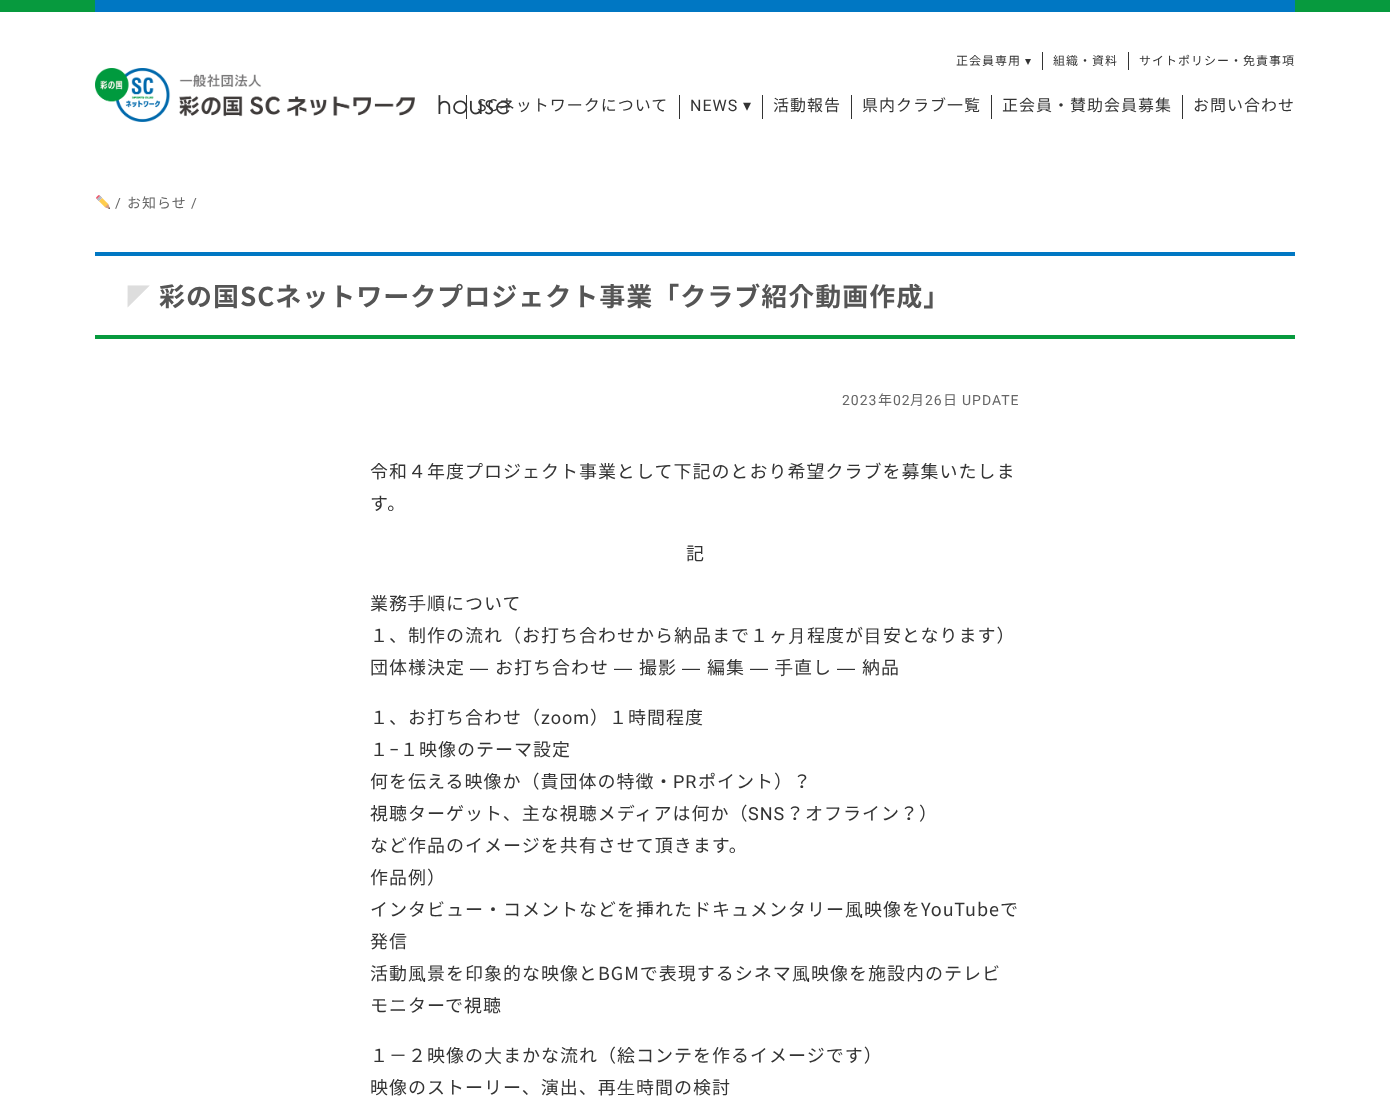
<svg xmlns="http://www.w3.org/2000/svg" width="1390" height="1105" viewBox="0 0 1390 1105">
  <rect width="100%" height="100%" fill="rgb(255,255,255)"/>
  <rect x="0" y="0" width="1390" height="12" fill="rgb(7,154,62)"/>
  <rect x="95" y="0" width="1200" height="12" fill="rgb(0,119,195)"/>
  <rect x="1042" y="52" width="1" height="18" fill="rgb(51,51,51)"/>
  <text x="956" y="65" font-family="Noto Sans JP" font-size="12" letter-spacing="1" fill="rgb(51,51,51)">正会員専用</text>
  <text x="1025" y="65" font-family="DejaVu Sans" font-size="12" letter-spacing="1" fill="rgb(51,51,51)">▾</text>
  <rect x="1128" y="52" width="1" height="18" fill="rgb(51,51,51)"/>
  <g font-family="Noto Sans JP" font-size="12" letter-spacing="1" fill="rgb(51,51,51)">
    <text x="1053" y="65">組織・資料</text>
    <text x="1139" y="65">サイトポリシー・免責事項</text>
  </g>
  <image x="95" y="68" width="320" height="54" href="pic1.png"/>
  <rect x="466" y="95" width="1" height="24" fill="rgb(51,51,51)"/>
  <image x="438" y="95" width="72" height="20" href="pic2.png"/>
  <rect x="679" y="95" width="1" height="24" fill="rgb(51,51,51)"/>
  <text x="477" y="111" font-family="Noto Sans JP" font-size="16" letter-spacing="1" fill="rgb(51,51,51)">SCネットワークについて</text>
  <rect x="762" y="95" width="1" height="24" fill="rgb(51,51,51)"/>
  <text x="690" y="111" font-family="Roboto" font-size="16" letter-spacing="1" fill="rgb(51,51,51)">NEWS</text>
  <text x="743" y="111" font-family="DejaVu Sans" font-size="16" letter-spacing="1" fill="rgb(51,51,51)">▾</text>
  <rect x="851" y="95" width="1" height="24" fill="rgb(51,51,51)"/>
  <text x="773" y="111" font-family="Noto Sans JP" font-size="16" letter-spacing="1" fill="rgb(51,51,51)">活動報告</text>
  <rect x="991" y="95" width="1" height="24" fill="rgb(51,51,51)"/>
  <text x="862" y="111" font-family="Noto Sans JP" font-size="16" letter-spacing="1" fill="rgb(51,51,51)">県内クラブ一覧</text>
  <rect x="1182" y="95" width="1" height="24" fill="rgb(51,51,51)"/>
  <g font-family="Noto Sans JP" font-size="16" letter-spacing="1" fill="rgb(51,51,51)">
    <text x="1002" y="111">正会員・賛助会員募集</text>
    <text x="1193" y="111">お問い合わせ</text>
  </g>
  <image x="96" y="195" width="14" height="14" href="pic3.png"/>
  <text x="115" y="208" font-family="Roboto" font-size="14" letter-spacing="1" fill="rgb(102,102,102)">/</text>
  <text x="127" y="208" font-family="Noto Sans JP" font-size="14" letter-spacing="1" fill="rgb(102,102,102)">お知らせ</text>
  <text x="191" y="208" font-family="Roboto" font-size="14" letter-spacing="1" fill="rgb(102,102,102)">/</text>
  <rect x="95" y="252" width="1200" height="4" fill="rgb(0,119,195)"/>
  <rect x="95" y="335" width="1200" height="4" fill="rgb(7,154,62)"/>
  <text x="125" y="306" font-family="WenQuanYi Zen Hei" font-size="26" font-weight="bold" letter-spacing="1" fill="rgb(221,221,221)">◤</text>
  <text x="159" y="306" font-family="Noto Sans JP" font-size="26" font-weight="bold" letter-spacing="1" fill="rgb(85,85,85)">彩の国SCネットワークプロジェクト事業「クラブ紹介動画作成」</text>
  <text x="842" y="405" font-family="Roboto" font-size="14" letter-spacing="1" fill="rgb(102,102,102)">2023</text>
  <text x="878" y="405" font-family="Noto Sans JP" font-size="14" letter-spacing="1" fill="rgb(102,102,102)">年</text>
  <text x="893" y="405" font-family="Roboto" font-size="14" letter-spacing="1" fill="rgb(102,102,102)">02</text>
  <text x="910" y="405" font-family="Noto Sans JP" font-size="14" letter-spacing="1" fill="rgb(102,102,102)">月</text>
  <text x="925" y="405" font-family="Roboto" font-size="14" letter-spacing="1" fill="rgb(102,102,102)">26</text>
  <text x="943" y="405" font-family="Noto Sans JP" font-size="14" letter-spacing="1" fill="rgb(102,102,102)">日</text>
  <text x="962" y="405" font-family="Roboto" font-size="14" letter-spacing="1" fill="rgb(102,102,102)">UPDATE</text>
  <g font-family="Noto Sans JP" font-size="18" letter-spacing="1" fill="rgb(51,51,51)">
    <text>
      <tspan x="370" y="478">令和４年度プロジェクト事業として下記のとおり希望クラブを募集いたしま</tspan>
      <tspan x="370" y="510">す。</tspan>
    </text>
    <text x="686" y="560">記</text>
    <text x="370" y="610">業務</text>
  </g>
  <text x="408" y="610" font-family="WenQuanYi Zen Hei" font-size="18" font-weight="500" letter-spacing="1" fill="rgb(51,51,51)">⼿</text>
  <g font-family="Noto Sans JP" font-size="18" letter-spacing="1" fill="rgb(51,51,51)">
    <text x="427" y="610">順について</text>
    <text x="370" y="642">１、制作の流れ（お打ち合わせから納品まで１ヶ</text>
  </g>
  <text x="788" y="642" font-family="WenQuanYi Zen Hei" font-size="18" font-weight="500" letter-spacing="1" fill="rgb(51,51,51)">⽉</text>
  <text x="807" y="642" font-family="Noto Sans JP" font-size="18" letter-spacing="1" fill="rgb(51,51,51)">程度が</text>
  <text x="864" y="642" font-family="WenQuanYi Zen Hei" font-size="18" font-weight="500" letter-spacing="1" fill="rgb(51,51,51)">⽬</text>
  <g font-family="Noto Sans JP" font-size="18" letter-spacing="1" fill="rgb(51,51,51)">
    <text x="883" y="642">安となります）</text>
    <text x="370" y="674">団体様決定</text>
  </g>
  <text x="470" y="674" font-family="Liberation Sans" font-size="18" letter-spacing="1" fill="rgb(51,51,51)">―</text>
  <text x="495" y="674" font-family="Noto Sans JP" font-size="18" letter-spacing="1" fill="rgb(51,51,51)">お打ち合わせ</text>
  <text x="614" y="674" font-family="Liberation Sans" font-size="18" letter-spacing="1" fill="rgb(51,51,51)">―</text>
  <text x="639" y="674" font-family="Noto Sans JP" font-size="18" letter-spacing="1" fill="rgb(51,51,51)">撮影</text>
  <text x="682" y="674" font-family="Liberation Sans" font-size="18" letter-spacing="1" fill="rgb(51,51,51)">―</text>
  <text x="707" y="674" font-family="Noto Sans JP" font-size="18" letter-spacing="1" fill="rgb(51,51,51)">編集</text>
  <text x="750" y="674" font-family="Liberation Sans" font-size="18" letter-spacing="1" fill="rgb(51,51,51)">―</text>
  <text x="775" y="674" font-family="WenQuanYi Zen Hei" font-size="18" font-weight="500" letter-spacing="1" fill="rgb(51,51,51)">⼿</text>
  <text x="794" y="674" font-family="Noto Sans JP" font-size="18" letter-spacing="1" fill="rgb(51,51,51)">直し</text>
  <text x="837" y="674" font-family="Liberation Sans" font-size="18" letter-spacing="1" fill="rgb(51,51,51)">―</text>
  <g font-family="Noto Sans JP" font-size="18" letter-spacing="1" fill="rgb(51,51,51)">
    <text x="862" y="674">納品</text>
    <text x="370" y="724">１、お打ち合わせ（</text>
  </g>
  <text x="541" y="724" font-family="Roboto" font-size="18" letter-spacing="1" fill="rgb(51,51,51)">zoom</text>
  <g font-family="Noto Sans JP" font-size="18" letter-spacing="1" fill="rgb(51,51,51)">
    <text x="590" y="724">）１時間程度</text>
    <text x="370" y="756">１</text>
  </g>
  <text x="389" y="756" font-family="Roboto" font-size="18" letter-spacing="1" fill="rgb(51,51,51)">−</text>
  <g font-family="Noto Sans JP" font-size="18" letter-spacing="1" fill="rgb(51,51,51)">
    <text x="400" y="756">１映像のテーマ設定</text>
    <text x="370" y="788">何を伝える映像か（貴団体の特徴・</text>
  </g>
  <text x="673" y="788" font-family="Roboto" font-size="18" letter-spacing="1" fill="rgb(51,51,51)">PR</text>
  <g font-family="Noto Sans JP" font-size="18" letter-spacing="1" fill="rgb(51,51,51)">
    <text x="698" y="788">ポイント）？</text>
    <text x="370" y="820">視聴ターゲット、主な視聴メディアは何か（</text>
  </g>
  <text x="748" y="820" font-family="Roboto" font-size="18" letter-spacing="1" fill="rgb(51,51,51)">SNS</text>
  <g font-family="Noto Sans JP" font-size="18" letter-spacing="1" fill="rgb(51,51,51)">
    <text x="786" y="820">？オフライン？）</text>
    <text>
      <tspan x="370" y="852">など作品のイメージを共有させて頂きます。</tspan>
      <tspan x="370" y="884">作品例）</tspan>
      <tspan x="370" y="916">インタビュー・コメントなどを挿れたドキュメンタリー</tspan>
    </text>
  </g>
  <text x="845" y="916" font-family="WenQuanYi Zen Hei" font-size="18" font-weight="500" letter-spacing="1" fill="rgb(51,51,51)">⾵</text>
  <g font-family="Noto Sans JP" font-size="18" letter-spacing="1" fill="rgb(51,51,51)">
    <text x="864" y="916">映像をYouTubeで</text>
    <text>
      <tspan x="370" y="948">発信</tspan>
      <tspan x="370" y="980">活動</tspan>
    </text>
  </g>
  <text x="408" y="980" font-family="WenQuanYi Zen Hei" font-size="18" font-weight="500" letter-spacing="1" fill="rgb(51,51,51)">⾵</text>
  <text x="427" y="980" font-family="Noto Sans JP" font-size="18" letter-spacing="1" fill="rgb(51,51,51)">景を印象的な映像とBGMで表現するシネマ</text>
  <text x="792" y="980" font-family="WenQuanYi Zen Hei" font-size="18" font-weight="500" letter-spacing="1" fill="rgb(51,51,51)">⾵</text>
  <g font-family="Noto Sans JP" font-size="18" letter-spacing="1" fill="rgb(51,51,51)">
    <text x="811" y="980">映像を施設内のテレビ</text>
    <text x="370" y="1012">モニターで視聴</text>
    <text x="370" y="1062">１−２映像の</text>
  </g>
  <text x="484" y="1062" font-family="WenQuanYi Zen Hei" font-size="18" font-weight="500" letter-spacing="1" fill="rgb(51,51,51)">⼤</text>
  <g font-family="Noto Sans JP" font-size="18" letter-spacing="1" fill="rgb(51,51,51)">
    <text x="503" y="1062">まかな流れ（絵コンテを作るイメージです）</text>
    <text x="370" y="1094">映像のストーリー、演出、再</text>
  </g>
  <text x="617" y="1094" font-family="WenQuanYi Zen Hei" font-size="18" font-weight="500" letter-spacing="1" fill="rgb(51,51,51)">⽣</text>
  <text x="636" y="1094" font-family="Noto Sans JP" font-size="18" letter-spacing="1" fill="rgb(51,51,51)">時間の検討</text>
</svg>
